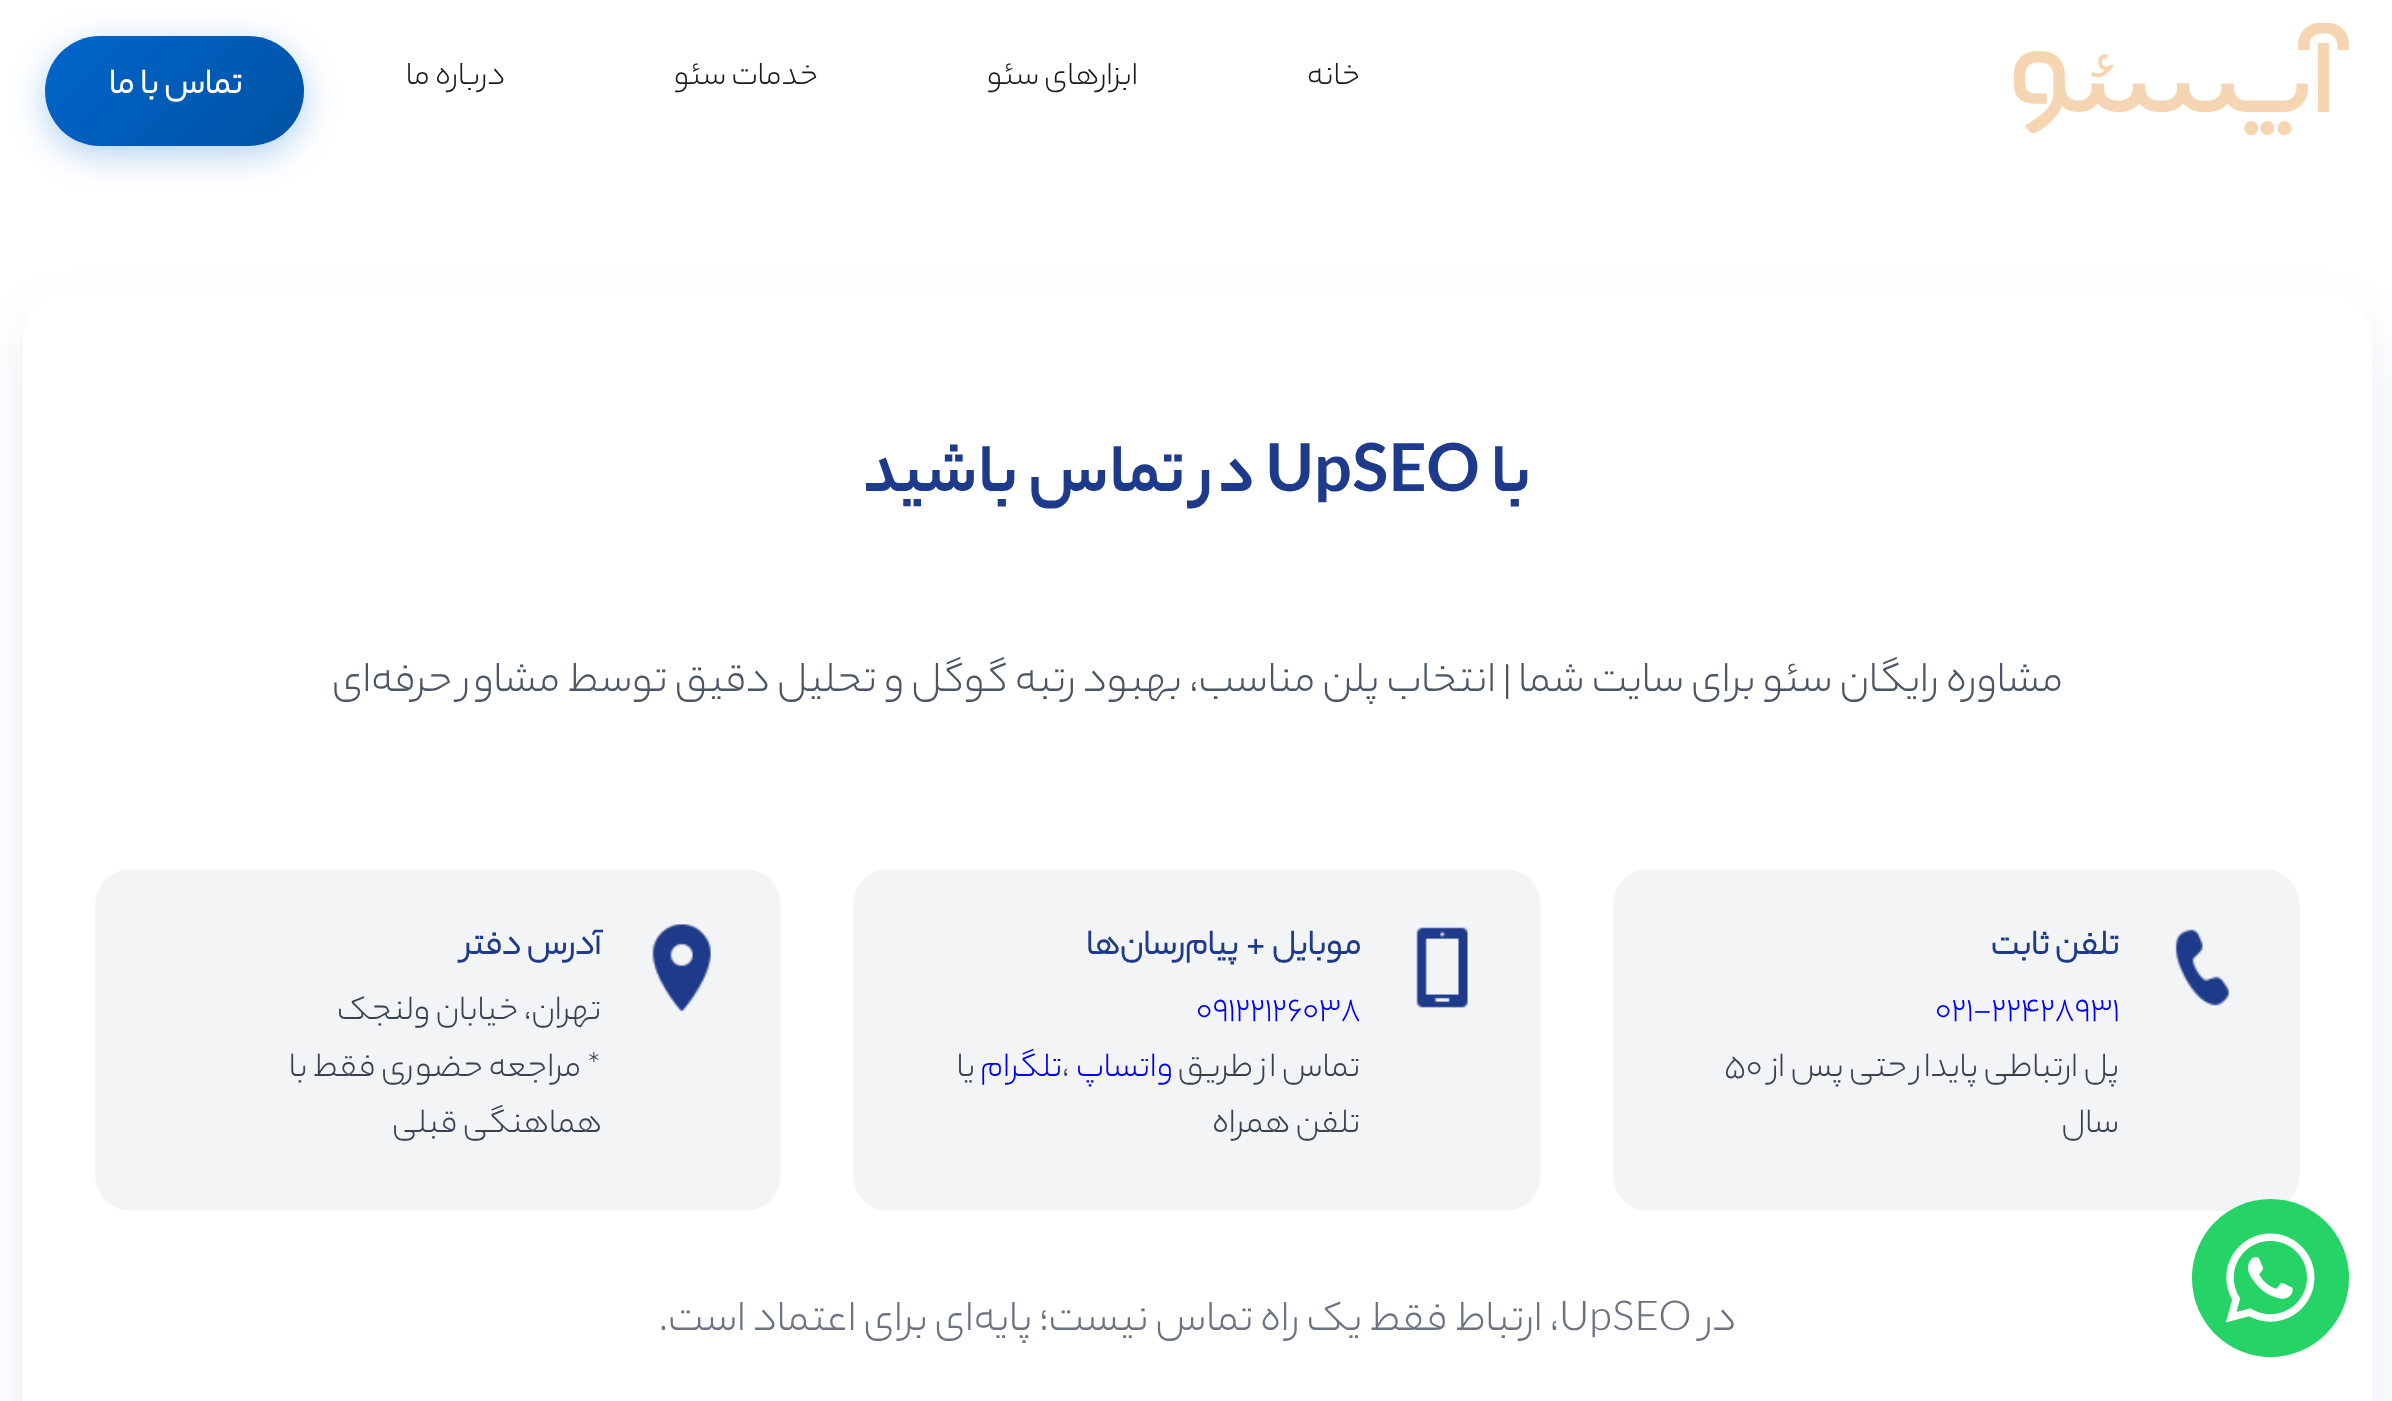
<svg xmlns="http://www.w3.org/2000/svg" width="2392" height="1401" viewBox="0 0 2392 1401">
  <defs>
    <linearGradient id="g1" gradientUnits="userSpaceOnUse" x1="82" y1="-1.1" x2="267" y2="183"><stop offset="0" stop-color="rgb(0,102,204)"/><stop offset="1" stop-color="rgb(0,82,163)"/></linearGradient>
  </defs>
  <rect width="100%" height="100%" fill="rgb(255,255,255)"/>
  <image x="2014" y="23" width="335" height="112" href="pic1.png"/>
  <g font-family="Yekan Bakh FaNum" font-size="33.75" font-weight="300" direction="rtl" fill="rgb(26,26,26)">
    <text x="1360" y="84">خانه</text>
    <text x="1138" y="84">ابزارهای سئو</text>
    <text x="818" y="84">خدمات سئو</text>
    <text x="505" y="84">درباره ما</text>
  </g>
  <rect x="45" y="45" width="259" height="110" rx="55" fill="rgba(0,102,204,0.3)" filter="blur(17px)"/>
  <rect x="45" y="36" width="259" height="110" rx="55" fill="url(#g1)"/>
  <text x="242" y="93" font-family="'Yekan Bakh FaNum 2'" font-size="36" font-weight="bold" direction="rtl" fill="rgb(255,255,255)">تماس با ما</text>
  <rect x="23" y="320" width="2349" height="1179" rx="45" fill="rgba(30,58,138,0.1)" filter="blur(27px)"/>
  <rect x="23" y="293" width="2349" height="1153" rx="45" fill="rgb(255,255,255)"/>
  <rect x="1613" y="869" width="687" height="342" rx="36" fill="rgb(243,244,246)"/>
  <rect x="2192" y="1199" width="157" height="158" rx="78.5" fill="rgb(37,211,102)"/>
  <image x="2226" y="1233" width="89" height="90" href="pic2.png"/>
  <text x="1531" y="491" font-family="Yekan Bakh FaNum" font-size="72" font-weight="bold" direction="rtl" fill="rgb(30,58,138)">با</text>
  <text x="1265" y="491" font-family="Yekan Bakh FaNum" font-size="72" font-weight="bold" fill="rgb(30,58,138)">UpSEO</text>
  <text x="1255" y="491" font-family="Yekan Bakh FaNum" font-size="72" font-weight="bold" direction="rtl" fill="rgb(30,58,138)">در تماس باشید</text>
  <text x="2063" y="691" word-spacing="0.25" font-family="Yekan Bakh FaNum" font-size="45" font-weight="300" direction="rtl" fill="rgb(75,85,99)">مشاوره رایگان سئو برای سایت شما | انتخاب پلن مناسب، بهبود رتبه گوگل و تحلیل دقیق توسط مشاور حرفه‌ای</text>
  <image x="2175" y="929" width="55" height="77" href="pic3.png"/>
  <text x="2119" y="954" font-family="'Yekan Bakh FaNum 2'" font-size="36" font-weight="bold" direction="rtl" fill="rgb(30,58,138)">تلفن ثابت</text>
  <text x="1935" y="1019" font-family="Yekan Bakh FaNum" font-size="36" font-weight="300" fill="rgb(0,0,238)">021-22428931</text>
  <text x="2119" y="1076" font-family="Yekan Bakh FaNum" font-size="36" font-weight="300" direction="rtl" fill="rgb(55,65,81)">پل ارتباطی پایدار حتی پس از</text>
  <text x="1724" y="1076" font-family="Yekan Bakh FaNum" font-size="36" font-weight="300" fill="rgb(55,65,81)">۵۰</text>
  <text x="2119" y="1132" font-family="Yekan Bakh FaNum" font-size="36" font-weight="300" direction="rtl" fill="rgb(55,65,81)">سال</text>
  <rect x="853" y="869" width="688" height="342" rx="36" fill="rgb(243,244,246)"/>
  <image x="1416" y="927" width="52" height="81" href="pic4.png"/>
  <text x="1361" y="954" word-spacing="2" font-family="'Yekan Bakh FaNum 2'" font-size="36" font-weight="bold" direction="rtl" fill="rgb(30,58,138)">موبایل + پیام‌رسان‌ها</text>
  <text x="1196" y="1019" font-family="Yekan Bakh FaNum" font-size="36" font-weight="300" fill="rgb(0,0,238)">09122126038</text>
  <text x="1360" y="1076" font-family="Yekan Bakh FaNum" font-size="36" font-weight="300" direction="rtl" fill="rgb(55,65,81)">تماس از طریق</text>
  <text x="1173" y="1076" font-family="Yekan Bakh FaNum" font-size="36" font-weight="300" direction="rtl" fill="rgb(0,0,238)">واتساپ</text>
  <text x="1062" y="1076" font-family="Yekan Bakh FaNum" font-size="36" font-weight="300" fill="rgb(55,65,81)">،</text>
  <text x="1062" y="1076" font-family="Yekan Bakh FaNum" font-size="36" font-weight="300" direction="rtl" fill="rgb(0,0,238)">تلگرام</text>
  <g font-family="Yekan Bakh FaNum" font-size="36" font-weight="300" direction="rtl" fill="rgb(55,65,81)">
    <text x="975" y="1076">یا</text>
    <text x="1360" y="1132">تلفن همراه</text>
  </g>
  <rect x="95" y="869" width="686" height="342" rx="36" fill="rgb(243,244,246)"/>
  <image x="652" y="924" width="59" height="88" href="pic5.png"/>
  <text x="601" y="954" font-family="'Yekan Bakh FaNum 2'" font-size="36" font-weight="bold" direction="rtl" fill="rgb(30,58,138)">آدرس دفتر</text>
  <g font-family="Yekan Bakh FaNum" font-size="36" font-weight="300" direction="rtl" fill="rgb(55,65,81)">
    <text>
      <tspan x="601" y="1019">تهران، خیابان ولنجک</tspan>
      <tspan x="601" y="1076">* مراجعه حضوری فقط با</tspan>
    </text>
    <text x="602" y="1132">هماهنگی قبلی</text>
  </g>
  <text x="1736" y="1330" font-family="Yekan Bakh FaNum" font-size="45" font-weight="300" direction="rtl" fill="rgb(107,114,128)">در</text>
  <text x="1559" y="1330" font-family="Yekan Bakh FaNum" font-size="45" font-weight="300" fill="rgb(107,114,128)">UpSEO</text>
  <text x="1559" y="1330" font-family="Yekan Bakh FaNum" font-size="45" font-weight="300" direction="rtl" fill="rgb(107,114,128)">، ارتباط فقط یک راه تماس نیست؛ پایه‌ای برای اعتماد است.</text>
</svg>
